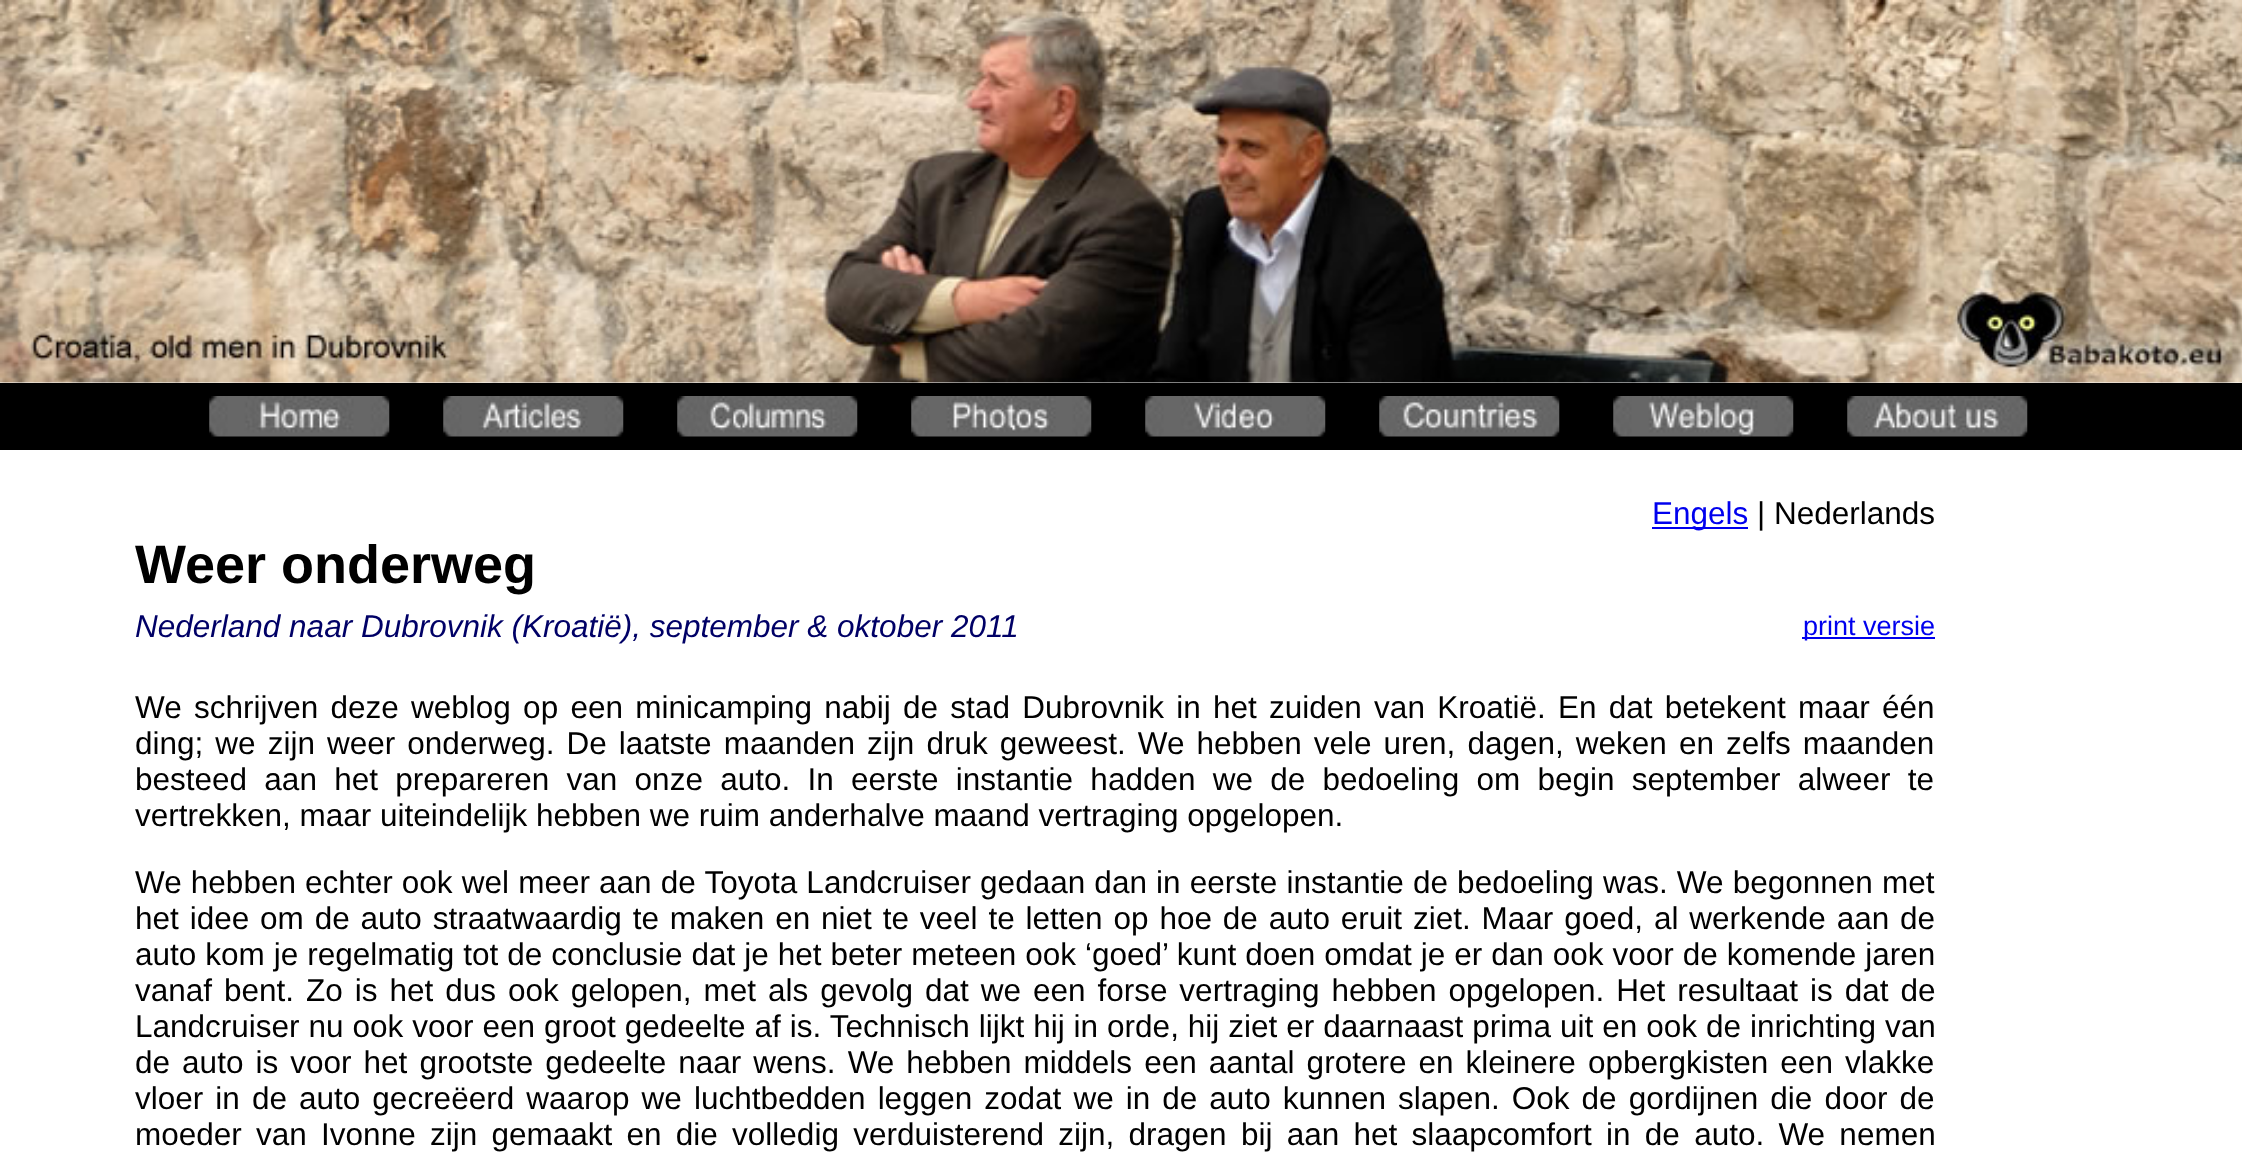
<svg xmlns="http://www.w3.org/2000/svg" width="2242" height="1165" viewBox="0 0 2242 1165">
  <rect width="100%" height="100%" fill="rgb(255,255,255)"/>
  <image x="0" y="0" width="2242" height="383" href="pic1.png"/>
  <rect x="0" y="383" width="2242" height="67" fill="rgb(0,0,0)"/>
  <image x="209" y="396" width="181" height="41" href="pic2.png"/>
  <image x="443" y="396" width="181" height="41" href="pic3.png"/>
  <image x="677" y="396" width="181" height="41" href="pic4.png"/>
  <image x="911" y="396" width="181" height="41" href="pic5.png"/>
  <image x="1145" y="396" width="181" height="41" href="pic6.png"/>
  <image x="1379" y="396" width="181" height="41" href="pic7.png"/>
  <image x="1613" y="396" width="181" height="41" href="pic8.png"/>
  <image x="1847" y="396" width="181" height="41" href="pic9.png"/>
  <rect x="1652" y="527" width="96" height="2" fill="rgb(0,0,238)"/>
  <text x="1652" y="524" font-family="Liberation Sans" font-size="31.5" fill="rgb(0,0,238)">Engels</text>
  <text x="1757" y="524" font-family="Liberation Sans" font-size="31.5" fill="rgb(0,0,0)">| Nederlands</text>
  <text x="135" y="583" font-family="Liberation Sans" font-size="54" font-weight="bold" fill="rgb(0,0,0)">Weer onderweg</text>
  <text x="135" y="637" font-family="Liberation Sans" font-size="31.5" font-style="italic" fill="rgb(0,0,102)">Nederland naar Dubrovnik (Kroatië), september &amp; oktober 2011</text>
  <rect x="1802" y="637" width="133" height="2" fill="rgb(0,0,238)"/>
  <text x="1803" y="635" font-family="Liberation Sans" font-size="27" fill="rgb(0,0,238)">print versie</text>
  <g font-family="Liberation Sans" font-size="31.5" fill="rgb(0,0,0)">
    <text>
      <tspan x="135" y="718" word-spacing="3.5">We schrijven deze weblog op een minicamping nabij de stad Dubrovnik in het zuiden van Kroatië. En dat betekent maar één</tspan>
      <tspan x="135" y="754" word-spacing="3.3">ding; we zijn weer onderweg. De laatste maanden zijn druk geweest. We hebben vele uren, dagen, weken en zelfs maanden</tspan>
      <tspan x="135" y="790" word-spacing="8.5">besteed aan het prepareren van onze auto. In eerste instantie hadden we de bedoeling om begin september alweer te</tspan>
      <tspan x="135" y="826">vertrekken, maar uiteindelijk hebben we ruim anderhalve maand vertraging opgelopen.</tspan>
    </text>
    <text>
      <tspan x="135" y="893" word-spacing="0.4">We hebben echter ook wel meer aan de Toyota Landcruiser gedaan dan in eerste instantie de bedoeling was. We begonnen met</tspan>
      <tspan x="135" y="929" word-spacing="2.1">het idee om de auto straatwaardig te maken en niet te veel te letten op hoe de auto eruit ziet. Maar goed, al werkende aan de</tspan>
      <tspan x="135" y="965" word-spacing="0.2">auto kom je regelmatig tot de conclusie dat je het beter meteen ook ‘goed’ kunt doen omdat je er dan ook voor de komende jaren</tspan>
      <tspan x="135" y="1001" word-spacing="3.2">vanaf bent. Zo is het dus ook gelopen, met als gevolg dat we een forse vertraging hebben opgelopen. Het resultaat is dat de</tspan>
      <tspan x="135" y="1037" word-spacing="0.2">Landcruiser nu ook voor een groot gedeelte af is. Technisch lijkt hij in orde, hij ziet er daarnaast prima uit en ook de inrichting van</tspan>
      <tspan x="135" y="1073" word-spacing="3.3">de auto is voor het grootste gedeelte naar wens. We hebben middels een aantal grotere en kleinere opbergkisten een vlakke</tspan>
      <tspan x="135" y="1109" word-spacing="3.3">vloer in de auto gecreëerd waarop we luchtbedden leggen zodat we in de auto kunnen slapen. Ook de gordijnen die door de</tspan>
      <tspan x="135" y="1145" word-spacing="5.5">moeder van Ivonne zijn gemaakt en die volledig verduisterend zijn, dragen bij aan het slaapcomfort in de auto. We nemen</tspan>
    </text>
  </g>
</svg>
